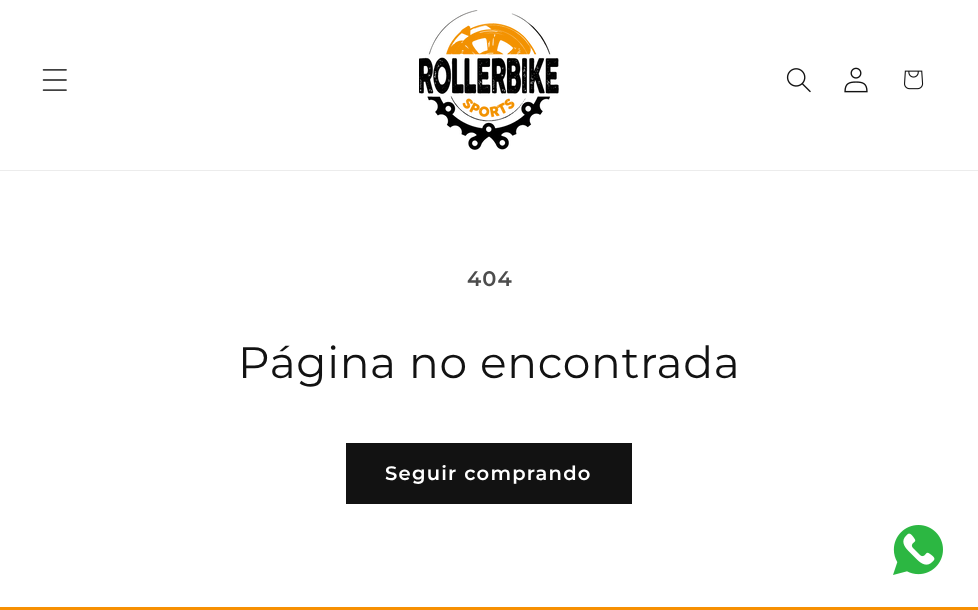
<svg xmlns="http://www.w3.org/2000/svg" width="978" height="610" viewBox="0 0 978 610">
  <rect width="100%" height="100%" fill="rgb(255,255,255)"/>
  <rect x="0" y="170" width="978" height="1" fill="rgb(236,236,236)"/>
  <image x="42" y="69" width="25" height="22" href="pic1.png"/>
  <image x="419" y="10" width="140" height="140" href="pic2.png"/>
  <image x="786" y="68" width="25" height="25" href="pic3.png"/>
  <image x="844" y="67" width="24" height="26" href="pic4.png"/>
  <image x="904" y="70" width="20" height="20" href="pic5.png"/>
  <text x="467" y="286" font-family="Montserrat" font-size="21" font-weight="600" letter-spacing="1" fill="rgb(77,77,77)">404</text>
  <text x="238" y="378" font-family="Montserrat" font-size="44" letter-spacing="0.7" fill="rgb(18,18,18)">Página no encontrada</text>
  <rect x="346" y="443" width="286" height="61" fill="rgb(18,18,18)"/>
  <text x="385" y="480" font-family="Montserrat" font-size="19.5" font-weight="600" letter-spacing="1.25" fill="rgb(255,255,255)">Seguir comprando</text>
  <image x="893" y="525" width="50" height="50" href="pic6.png"/>
  <rect x="0" y="607" width="978" height="3" fill="rgb(247,144,2)"/>
</svg>
